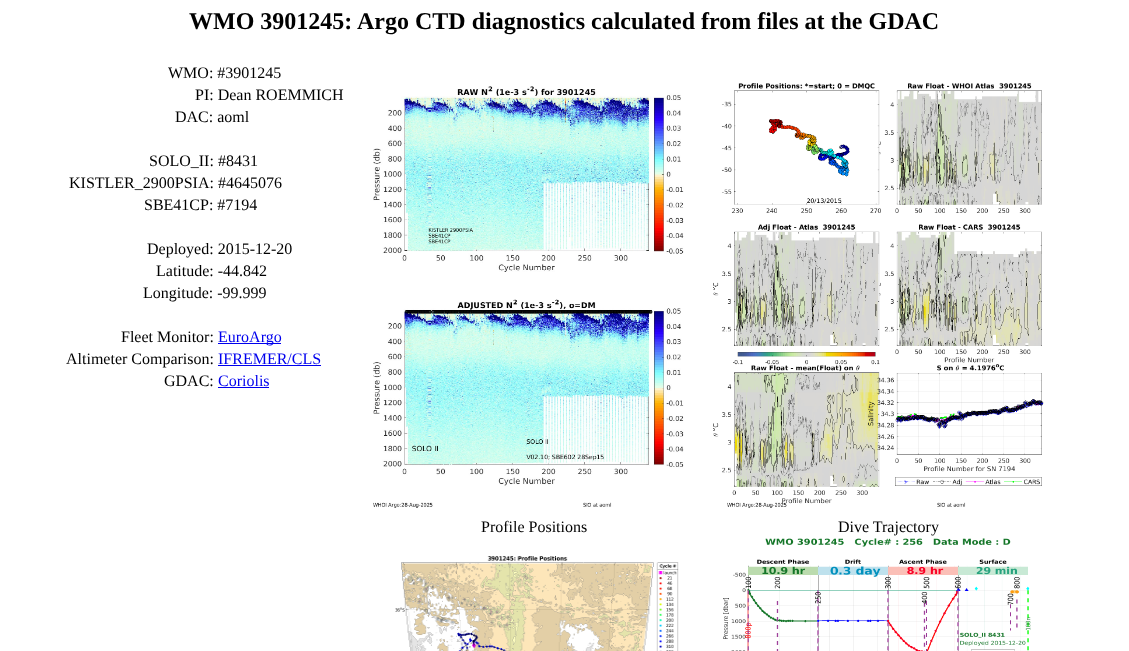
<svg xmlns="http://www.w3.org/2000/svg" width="1129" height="651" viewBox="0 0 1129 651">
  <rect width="100%" height="100%" fill="rgb(255,255,255)"/>
  <text x="189" y="29" font-family="Liberation Serif" font-size="24" font-weight="bold" fill="rgb(0,0,0)">WMO 3901245: Argo CTD diagnostics calculated from files at the GDAC</text>
  <g font-family="Liberation Serif" font-size="16" fill="rgb(0,0,0)">
    <text x="168" y="78">WMO: #3901245</text>
    <text x="195" y="100">PI: Dean ROEMMICH</text>
    <text x="175" y="122">DAC: aoml</text>
    <text x="149" y="166">SOLO_II: #8431</text>
    <text x="69" y="188">KISTLER_2900PSIA: #4645076</text>
    <text x="144" y="210">SBE41CP: #7194</text>
    <text x="147" y="254">Deployed: 2015-12-20</text>
    <text x="156" y="276">Latitude: -44.842</text>
    <text x="143" y="298">Longitude: -99.999</text>
    <text x="121" y="342">Fleet Monitor:</text>
  </g>
  <rect x="218" y="343" width="63" height="1" fill="rgb(0,0,238)"/>
  <text x="218" y="342" font-family="Liberation Serif" font-size="16" fill="rgb(0,0,238)">EuroArgo</text>
  <text x="66" y="364" font-family="Liberation Serif" font-size="16" fill="rgb(0,0,0)">Altimeter Comparison:</text>
  <text x="218" y="364" font-family="Liberation Serif" font-size="16" fill="rgb(0,0,238)">IFREMER/CLS</text>
  <rect x="218" y="365" width="103" height="1" fill="rgb(0,0,238)"/>
  <text x="164" y="386" font-family="Liberation Serif" font-size="16" fill="rgb(0,0,0)">GDAC:</text>
  <text x="218" y="386" font-family="Liberation Serif" font-size="16" fill="rgb(0,0,238)">Coriolis</text>
  <rect x="218" y="387" width="51" height="1" fill="rgb(0,0,238)"/>
  <image x="373" y="86" width="311" height="422" href="pic1.png"/>
  <image x="713" y="83" width="331" height="425" href="pic2.png"/>
  <text x="481" y="532" font-family="Liberation Serif" font-size="16" fill="rgb(0,0,0)">Profile Positions</text>
  <image x="395" y="556" width="284" height="95" href="pic3.png"/>
  <text x="838" y="532" font-family="Liberation Serif" font-size="16" fill="rgb(0,0,0)">Dive Trajectory</text>
  <image x="723" y="538" width="308" height="113" href="pic4.png"/>
</svg>
